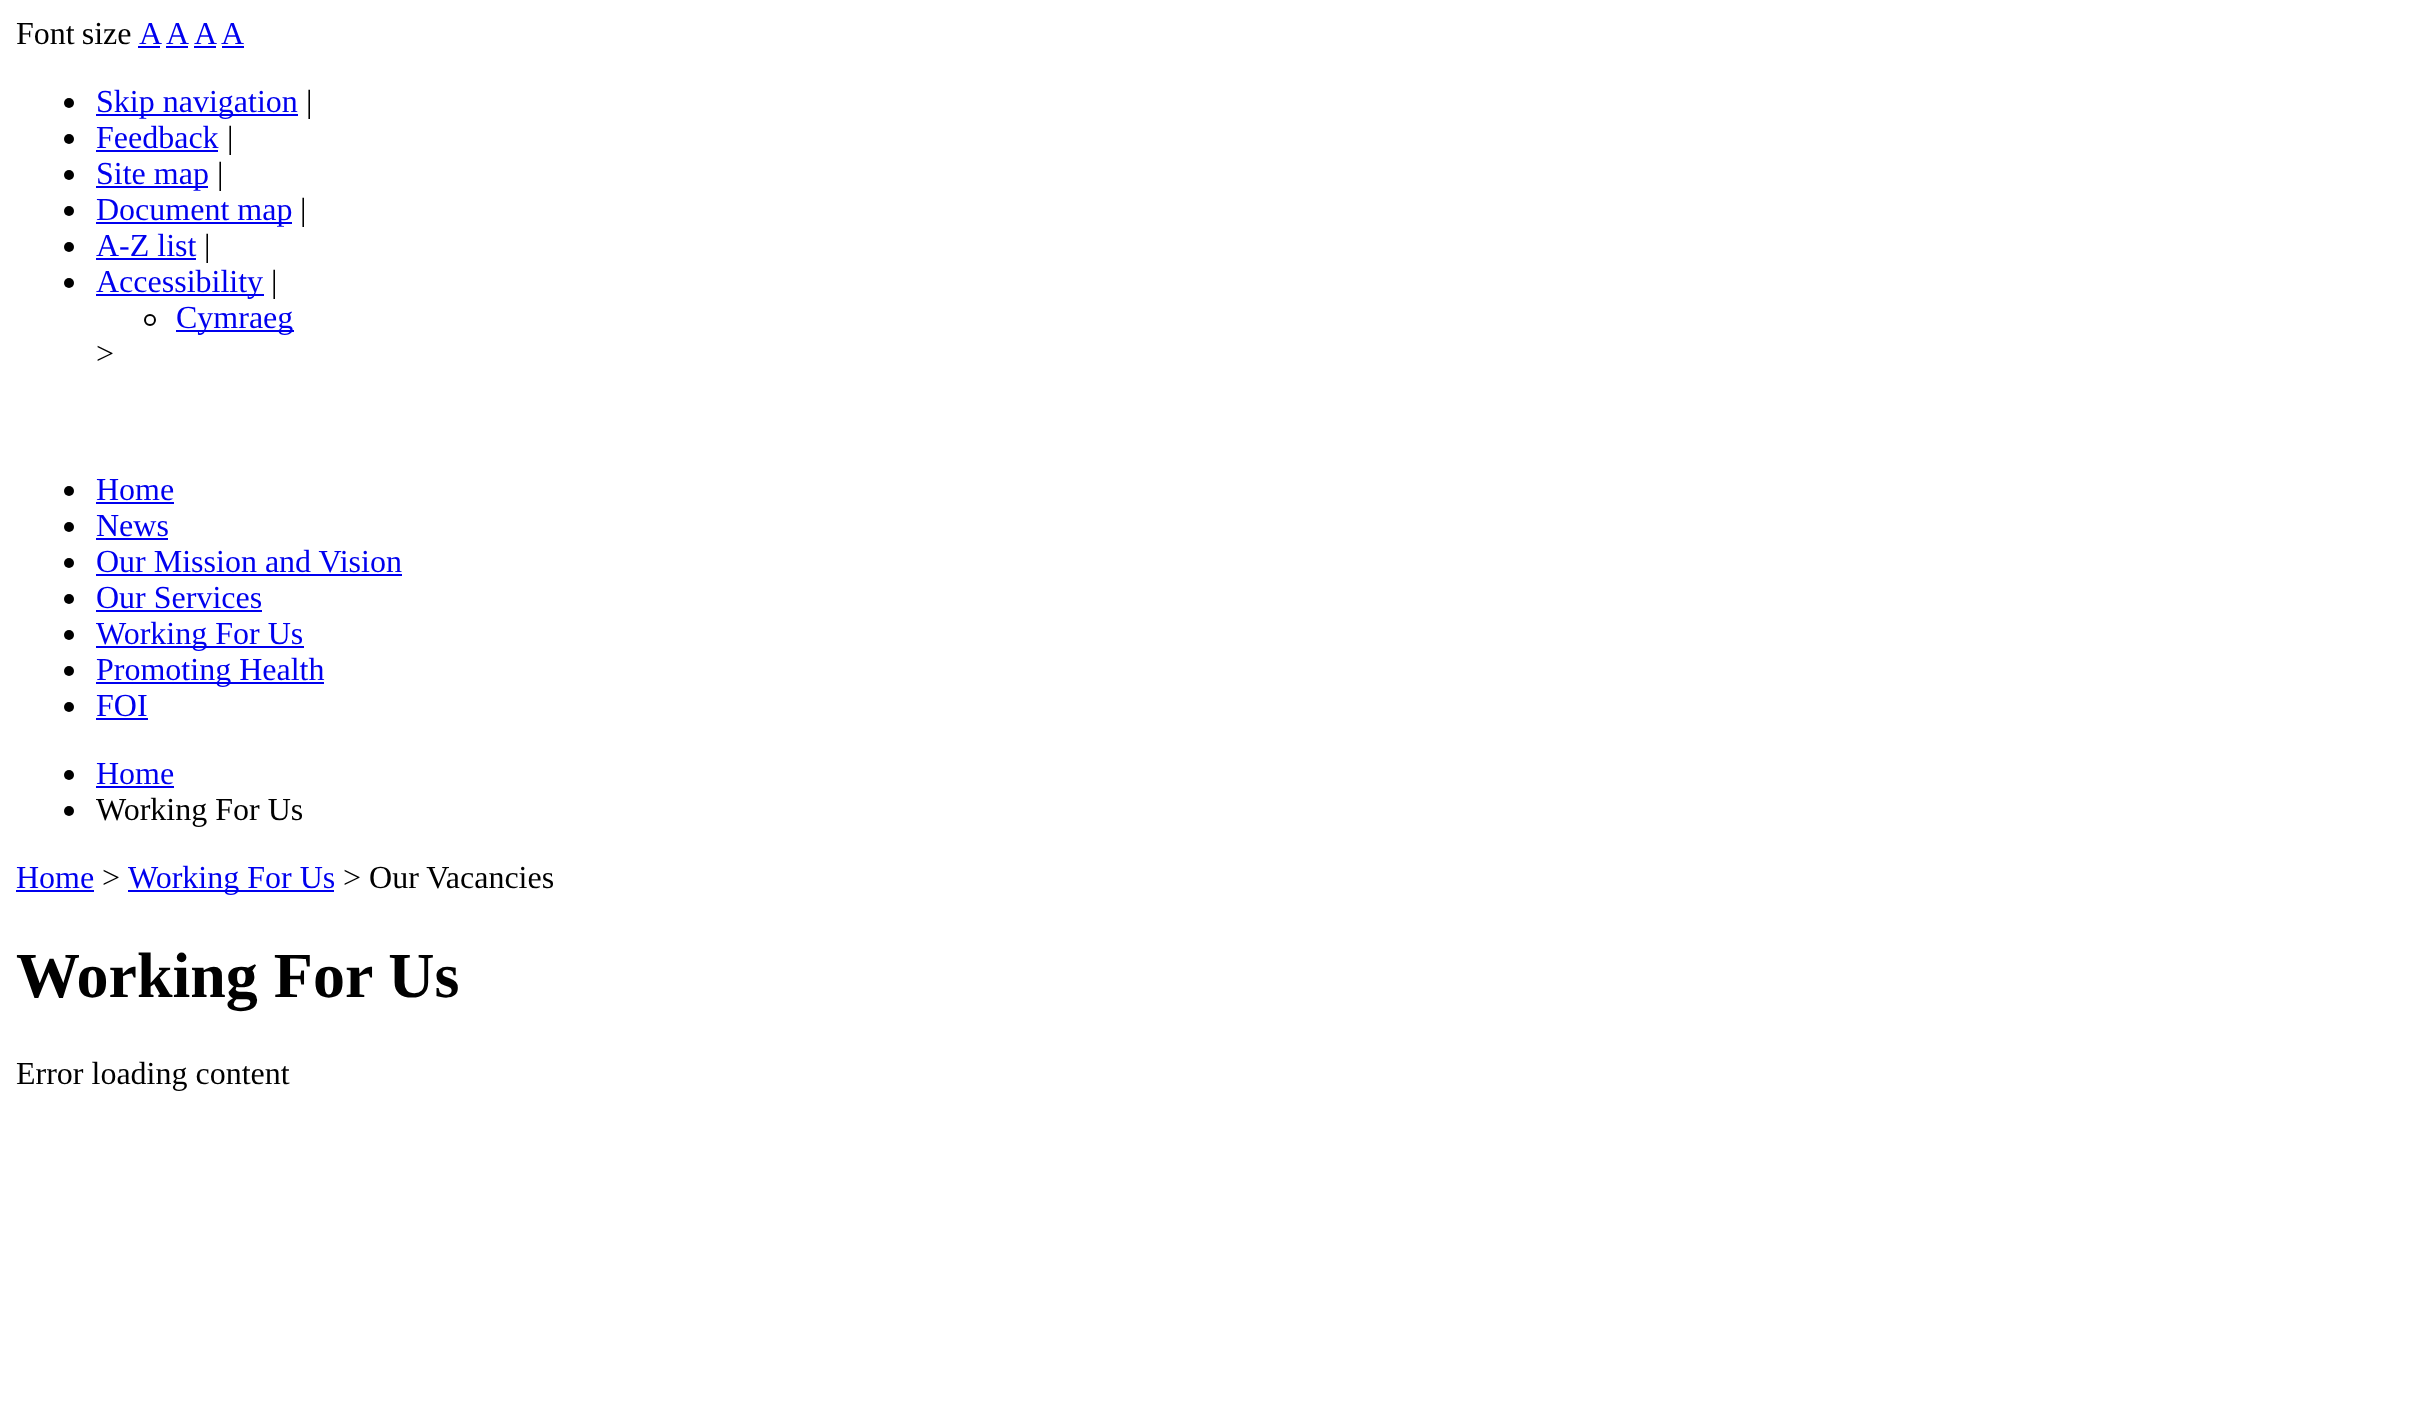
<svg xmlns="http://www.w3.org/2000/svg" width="2422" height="1409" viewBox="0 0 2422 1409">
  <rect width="100%" height="100%" fill="rgb(255,255,255)"/>
  <text x="16" y="44" word-spacing="-1" font-family="Liberation Serif" font-size="32" fill="rgb(0,0,0)">Font size</text>
  <text x="139" y="44" font-family="Liberation Serif" font-size="32" fill="rgb(0,0,238)">A</text>
  <rect x="138" y="46" width="22" height="2" fill="rgb(0,0,238)"/>
  <text x="166" y="44" font-family="Liberation Serif" font-size="32" fill="rgb(0,0,238)">A</text>
  <rect x="166" y="46" width="22" height="2" fill="rgb(0,0,238)"/>
  <text x="194" y="44" font-family="Liberation Serif" font-size="32" fill="rgb(0,0,238)">A</text>
  <rect x="194" y="46" width="22" height="2" fill="rgb(0,0,238)"/>
  <text x="221" y="44" font-family="Liberation Serif" font-size="32" fill="rgb(0,0,238)">A</text>
  <rect x="222" y="46" width="22" height="2" fill="rgb(0,0,238)"/>
  <circle cx="69" cy="103" r="5" fill="rgb(0,0,0)"/>
  <rect x="96" y="114" width="202" height="2" fill="rgb(0,0,238)"/>
  <text x="96" y="112" font-family="Liberation Serif" font-size="32" fill="rgb(0,0,238)">Skip navigation</text>
  <text x="306" y="112" font-family="Liberation Serif" font-size="32" fill="rgb(0,0,0)">|</text>
  <circle cx="69" cy="139" r="5" fill="rgb(0,0,0)"/>
  <text x="96" y="148" font-family="Liberation Serif" font-size="32" fill="rgb(0,0,238)">Feedback</text>
  <rect x="96" y="150" width="122" height="2" fill="rgb(0,0,238)"/>
  <text x="227" y="148" font-family="Liberation Serif" font-size="32" fill="rgb(0,0,0)">|</text>
  <circle cx="69" cy="175" r="5" fill="rgb(0,0,0)"/>
  <rect x="96" y="186" width="112" height="2" fill="rgb(0,0,238)"/>
  <text x="96" y="184" font-family="Liberation Serif" font-size="32" fill="rgb(0,0,238)">Site map</text>
  <text x="217" y="184" font-family="Liberation Serif" font-size="32" fill="rgb(0,0,0)">|</text>
  <circle cx="69" cy="211" r="5" fill="rgb(0,0,0)"/>
  <rect x="96" y="222" width="196" height="2" fill="rgb(0,0,238)"/>
  <text x="96" y="220" font-family="Liberation Serif" font-size="32" fill="rgb(0,0,238)">Document map</text>
  <text x="300" y="220" font-family="Liberation Serif" font-size="32" fill="rgb(0,0,0)">|</text>
  <circle cx="69" cy="247" r="5" fill="rgb(0,0,0)"/>
  <text x="96" y="256" font-family="Liberation Serif" font-size="32" fill="rgb(0,0,238)">A-Z list</text>
  <rect x="96" y="258" width="100" height="2" fill="rgb(0,0,238)"/>
  <text x="204" y="256" font-family="Liberation Serif" font-size="32" fill="rgb(0,0,0)">|</text>
  <circle cx="69" cy="283" r="5" fill="rgb(0,0,0)"/>
  <rect x="96" y="294" width="168" height="2" fill="rgb(0,0,238)"/>
  <text x="96" y="292" font-family="Liberation Serif" font-size="32" fill="rgb(0,0,238)">Accessibility</text>
  <text x="271" y="292" font-family="Liberation Serif" font-size="32" fill="rgb(0,0,0)">|</text>
  <circle cx="150" cy="320" r="5" fill="none" stroke="rgb(0,0,0)" stroke-width="2"/>
  <rect x="176" y="330" width="118" height="2" fill="rgb(0,0,238)"/>
  <text x="176" y="328" font-family="Liberation Serif" font-size="32" fill="rgb(0,0,238)">Cymraeg</text>
  <text x="96" y="364" font-family="Liberation Serif" font-size="32" fill="rgb(0,0,0)">&gt;</text>
  <circle cx="69" cy="491" r="5" fill="rgb(0,0,0)"/>
  <text x="96" y="500" font-family="Liberation Serif" font-size="32" fill="rgb(0,0,238)">Home</text>
  <rect x="96" y="502" width="78" height="2" fill="rgb(0,0,238)"/>
  <circle cx="69" cy="527" r="5" fill="rgb(0,0,0)"/>
  <text x="96" y="536" font-family="Liberation Serif" font-size="32" fill="rgb(0,0,238)">News</text>
  <rect x="96" y="538" width="72" height="2" fill="rgb(0,0,238)"/>
  <circle cx="69" cy="563" r="5" fill="rgb(0,0,0)"/>
  <text x="96" y="572" font-family="Liberation Serif" font-size="32" fill="rgb(0,0,238)">Our Mission and Vision</text>
  <rect x="96" y="574" width="306" height="2" fill="rgb(0,0,238)"/>
  <circle cx="69" cy="599" r="5" fill="rgb(0,0,0)"/>
  <text x="96" y="608" font-family="Liberation Serif" font-size="32" fill="rgb(0,0,238)">Our Services</text>
  <rect x="96" y="610" width="166" height="2" fill="rgb(0,0,238)"/>
  <circle cx="69" cy="635" r="5" fill="rgb(0,0,0)"/>
  <rect x="96" y="646" width="208" height="2" fill="rgb(0,0,238)"/>
  <text x="96" y="644" font-family="Liberation Serif" font-size="32" fill="rgb(0,0,238)">Working For Us</text>
  <circle cx="69" cy="671" r="5" fill="rgb(0,0,0)"/>
  <rect x="96" y="682" width="228" height="2" fill="rgb(0,0,238)"/>
  <text x="96" y="680" font-family="Liberation Serif" font-size="32" fill="rgb(0,0,238)">Promoting Health</text>
  <circle cx="69" cy="707" r="5" fill="rgb(0,0,0)"/>
  <text x="96" y="716" font-family="Liberation Serif" font-size="32" fill="rgb(0,0,238)">FOI</text>
  <rect x="96" y="718" width="52" height="2" fill="rgb(0,0,238)"/>
  <circle cx="69" cy="775" r="5" fill="rgb(0,0,0)"/>
  <text x="96" y="784" font-family="Liberation Serif" font-size="32" fill="rgb(0,0,238)">Home</text>
  <rect x="96" y="786" width="78" height="2" fill="rgb(0,0,238)"/>
  <circle cx="69" cy="811" r="5" fill="rgb(0,0,0)"/>
  <text x="96" y="820" font-family="Liberation Serif" font-size="32" fill="rgb(0,0,0)">Working For Us</text>
  <text x="16" y="888" font-family="Liberation Serif" font-size="32" fill="rgb(0,0,238)">Home</text>
  <rect x="16" y="890" width="78" height="2" fill="rgb(0,0,238)"/>
  <text x="102" y="888" font-family="Liberation Serif" font-size="32" fill="rgb(0,0,0)">&gt;</text>
  <rect x="128" y="890" width="206" height="2" fill="rgb(0,0,238)"/>
  <text x="128" y="888" font-family="Liberation Serif" font-size="32" fill="rgb(0,0,238)">Working For Us</text>
  <text x="343" y="888" font-family="Liberation Serif" font-size="32" fill="rgb(0,0,0)">&gt; Our Vacancies</text>
  <text x="16" y="997" font-family="Liberation Serif" font-size="64" font-weight="bold" fill="rgb(0,0,0)">Working For Us</text>
  <text x="16" y="1084" font-family="Liberation Serif" font-size="32" fill="rgb(0,0,0)">Error loading content</text>
</svg>
